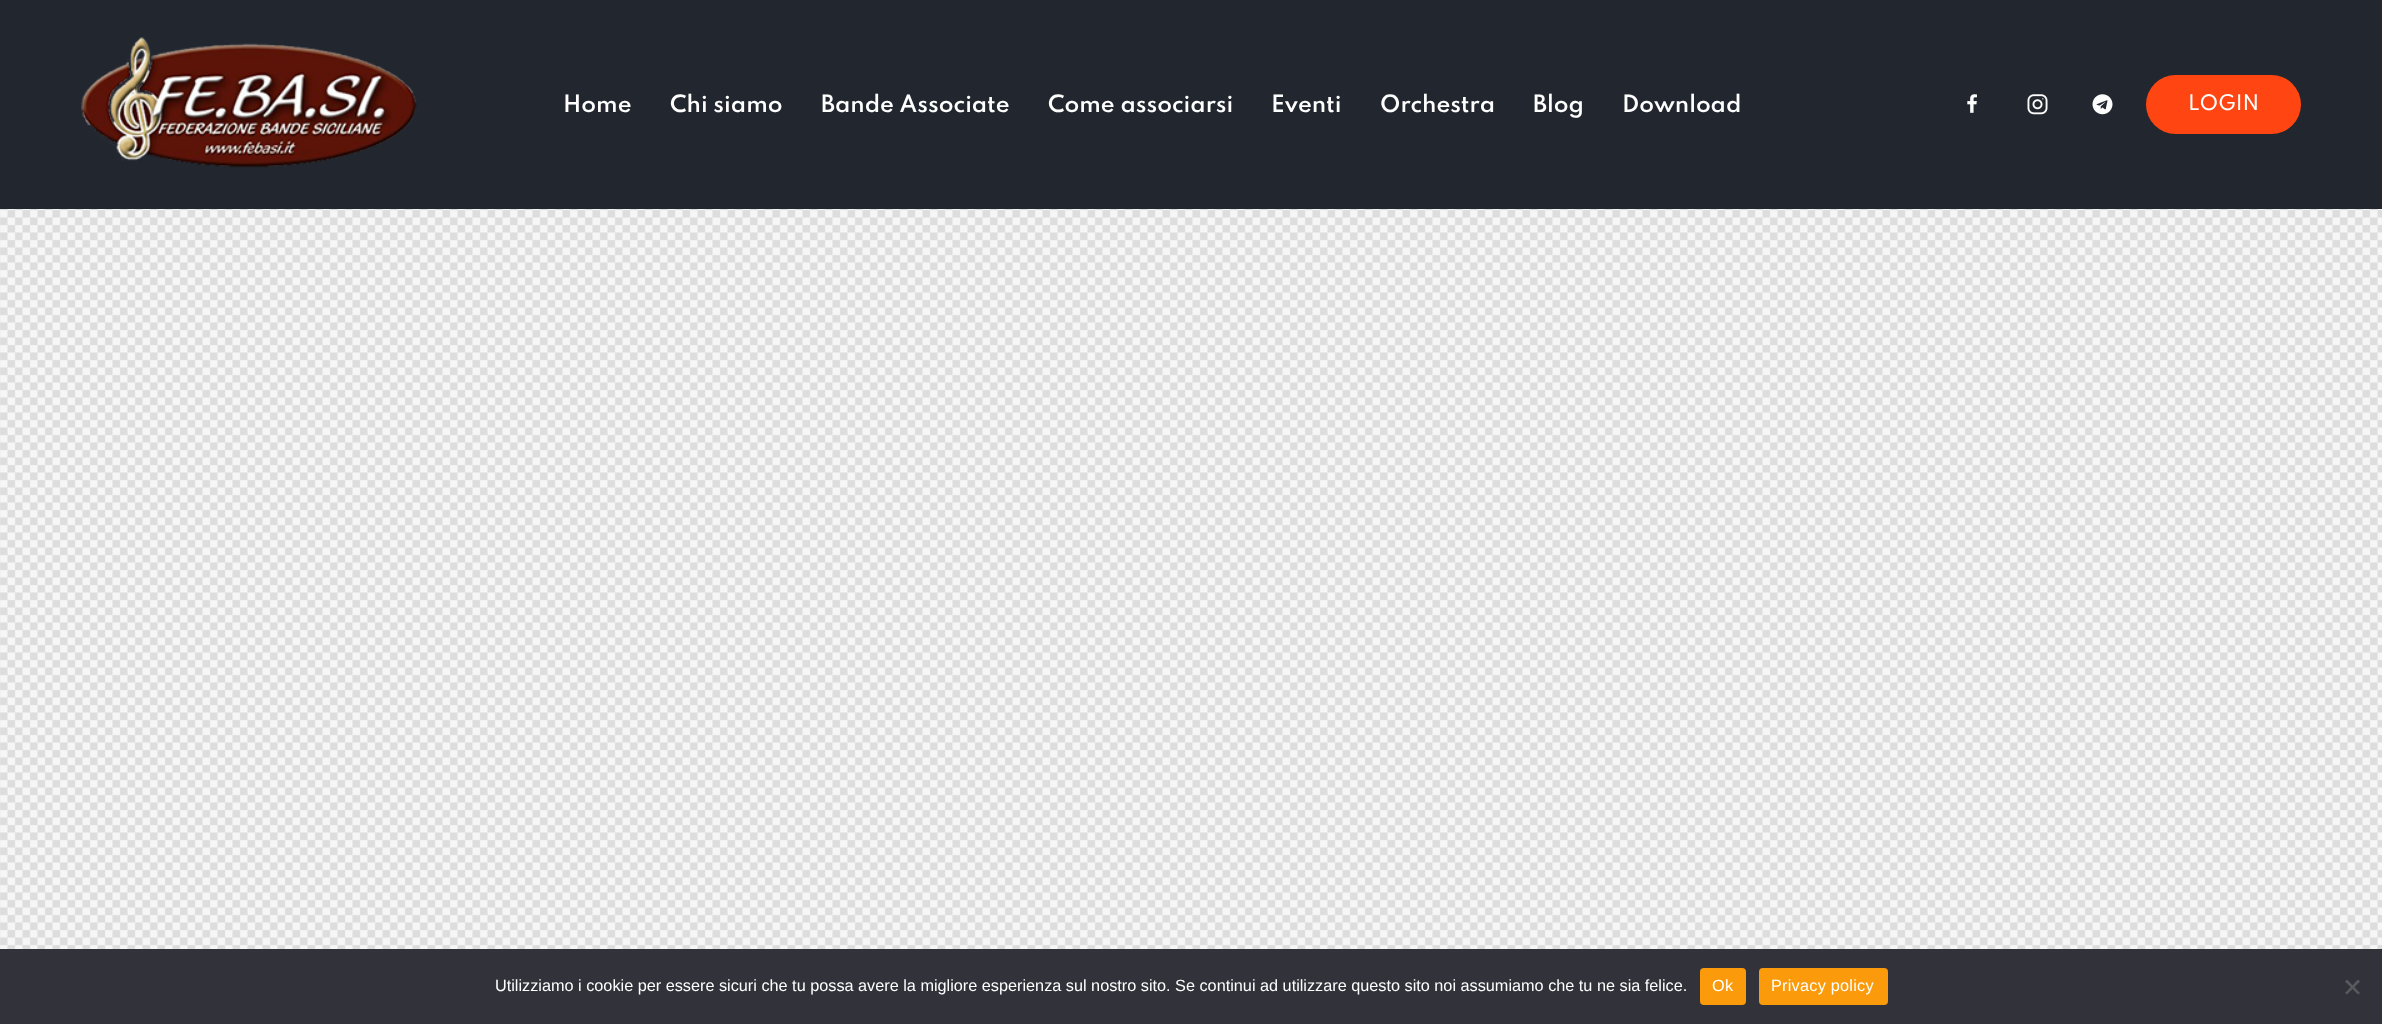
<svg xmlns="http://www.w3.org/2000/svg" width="2382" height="1024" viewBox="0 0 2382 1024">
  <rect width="100%" height="100%" fill="rgb(255,255,255)"/>
  <image x="0" y="209" width="2382" height="740" href="pic1.png"/>
  <rect x="0" y="0" width="2382" height="209" fill="rgb(34,38,46)"/>
  <image x="81" y="37" width="336" height="131" href="pic2.png"/>
  <g font-family="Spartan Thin" font-size="21.25" font-weight="600" fill="rgb(255,255,255)">
    <text x="563" y="112">Home</text>
    <text x="670" y="112">Chi siamo</text>
    <text x="821" y="112">Bande Associate</text>
    <text x="1048" y="112">Come associarsi</text>
    <text x="1271" y="112">Eventi</text>
    <text x="1380" y="112">Orchestra</text>
    <text x="1533" y="112">Blog</text>
    <text x="1622" y="112">Download</text>
  </g>
  <image x="1967" y="94" width="10" height="19" href="pic3.png"/>
  <image x="2027" y="94" width="21" height="21" href="pic4.png"/>
  <image x="2092" y="94" width="21" height="21" href="pic5.png"/>
  <rect x="2146" y="75" width="155" height="59" rx="29.5" fill="rgb(255,70,18)"/>
  <text x="2188" y="110" font-family="Spartan Thin" font-size="19" font-weight="500" fill="rgb(255,255,255)">LOGIN</text>
  <rect x="0" y="949" width="2382" height="75" fill="rgb(50,50,58)"/>
  <text x="495" y="991" font-family="Liberation Sans" font-size="16.25" fill="rgb(255,255,255)">Utilizziamo i cookie per essere sicuri che tu possa avere la migliore esperienza sul nostro sito. Se continui ad utilizzare questo sito noi assumiamo che tu ne sia felice.</text>
  <rect x="1700" y="968" width="46" height="37" rx="4" fill="rgb(251,155,11)"/>
  <text x="1712" y="991" font-family="Liberation Sans" font-size="16.25" letter-spacing="0.25" fill="rgb(255,255,255)">Ok</text>
  <rect x="1759" y="968" width="129" height="37" rx="4" fill="rgb(251,155,11)"/>
  <text x="1771" y="991" font-family="Liberation Sans" font-size="16.25" letter-spacing="0.25" fill="rgb(255,255,255)">Privacy policy</text>
  <path d="M2358 979.5L2360 981.5L2347 994.5L2345 993Z" fill="rgb(89,89,93)"/>
  <path d="M2345 981.5L2347 979.5L2360 993L2358 994.5Z" fill="rgb(89,89,93)"/>
</svg>
